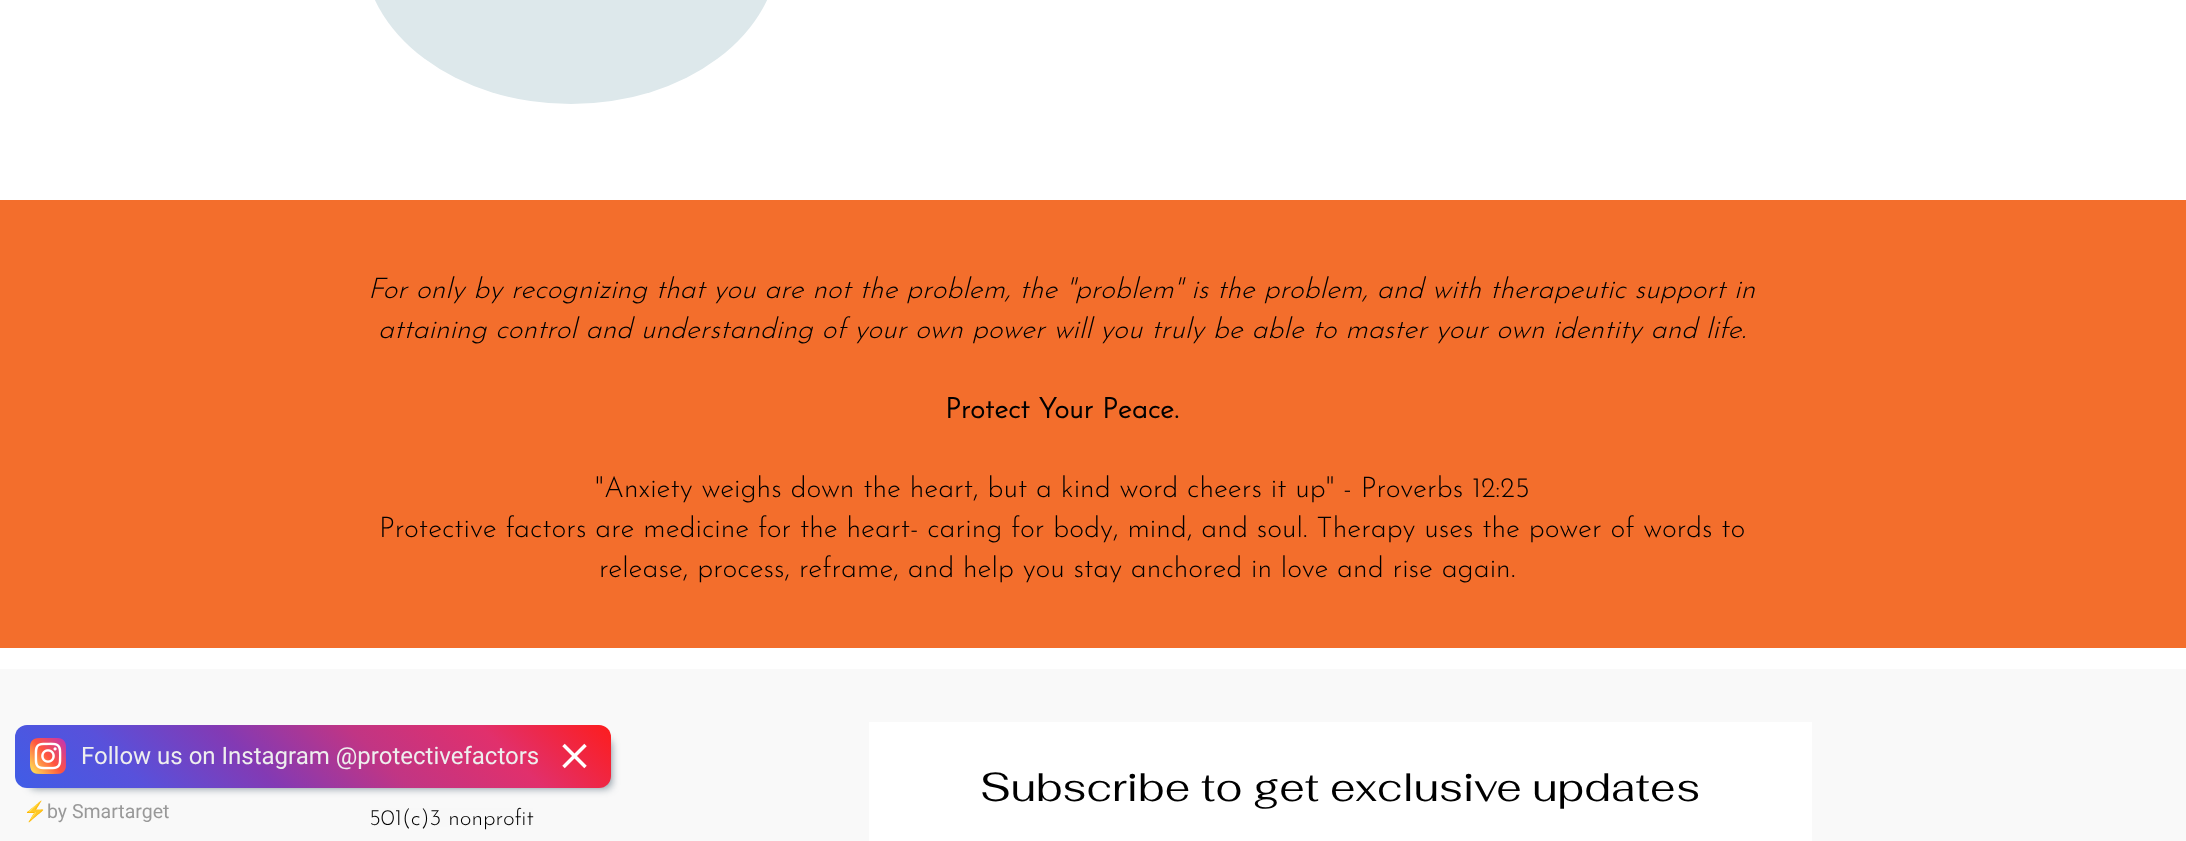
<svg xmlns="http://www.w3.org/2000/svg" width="2186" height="841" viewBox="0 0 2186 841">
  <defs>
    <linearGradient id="g1" gradientUnits="userSpaceOnUse" x1="148" y1="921" x2="477" y2="591"><stop offset="0" stop-color="rgb(64,93,230)"/><stop offset="0.2" stop-color="rgb(88,81,219)"/><stop offset="0.4" stop-color="rgb(131,58,180)"/><stop offset="0.6" stop-color="rgb(193,53,132)"/><stop offset="0.8" stop-color="rgb(225,48,108)"/><stop offset="1" stop-color="rgb(253,29,29)"/></linearGradient>
  </defs>
  <rect width="100%" height="100%" fill="rgb(255,255,255)"/>
  <rect x="0" y="669" width="2186" height="172" fill="rgb(249,249,249)"/>
  <rect x="30" y="740" width="581" height="48" rx="5" fill="rgba(34,60,80,0.6)" filter="blur(4px)"/>
  <rect x="15" y="725" width="596" height="63" rx="12" fill="url(#g1)"/>
  <image x="30" y="738" width="36" height="36" href="pic1.png"/>
  <text x="81" y="764" font-family="Roboto" font-size="24" fill="rgb(238,238,238)">Follow us on Instagram @protectivefactors</text>
  <image x="562" y="743" width="25" height="26" href="pic2.png"/>
  <rect x="371" y="808" width="162" height="19" fill="rgba(245,245,245,0.06)"/>
  <text x="23" y="818" font-family="Noto Color Emoji" font-size="19.5" fill="rgb(153,153,153)">⚡</text>
  <text x="47" y="818" font-family="Roboto" font-size="19.5" fill="rgb(153,153,153)">by Smartarget</text>
  <rect x="363" y="-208" width="416" height="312" rx="208" fill="rgb(221,232,235)"/>
  <rect x="0" y="200" width="2186" height="448" fill="rgb(243,110,44)"/>
  <g font-family="Josefin Sans" font-size="28.5" font-weight="100" font-style="italic" fill="rgb(0,0,0)">
    <text x="368" y="298">For only by recognizing that you are not the problem, the "problem" is the problem, and with therapeutic support in</text>
    <text x="378" y="338">attaining control and understanding of your own power will you truly be able to master your own identity and life.</text>
  </g>
  <text x="945" y="418" font-family="Josefin Sans" font-size="28.5" font-weight="bold" fill="rgb(0,0,0)">Protect Your Peace.</text>
  <g font-family="Josefin Sans" font-size="28.5" font-weight="100" fill="rgb(0,0,0)">
    <text x="595" y="497">"Anxiety weighs down the heart, but a kind word cheers it up" - Proverbs 12:25</text>
    <text x="379" y="537">Protective factors are medicine for the heart- caring for body, mind, and soul. Therapy uses the power of words to</text>
    <text x="599" y="577">release, process, reframe, and help you stay anchored in love and rise again.</text>
  </g>
  <rect x="869" y="722" width="943" height="119" fill="rgb(255,255,255)"/>
  <text x="980" y="801" font-family="Fahkwang" font-size="40.5" fill="rgb(0,0,0)">Subscribe to get exclusive updates</text>
  <text x="369" y="825" font-family="Josefin Sans" font-size="22.5" font-weight="100" fill="rgb(0,0,0)">501(c)3 nonprofit</text>
</svg>
